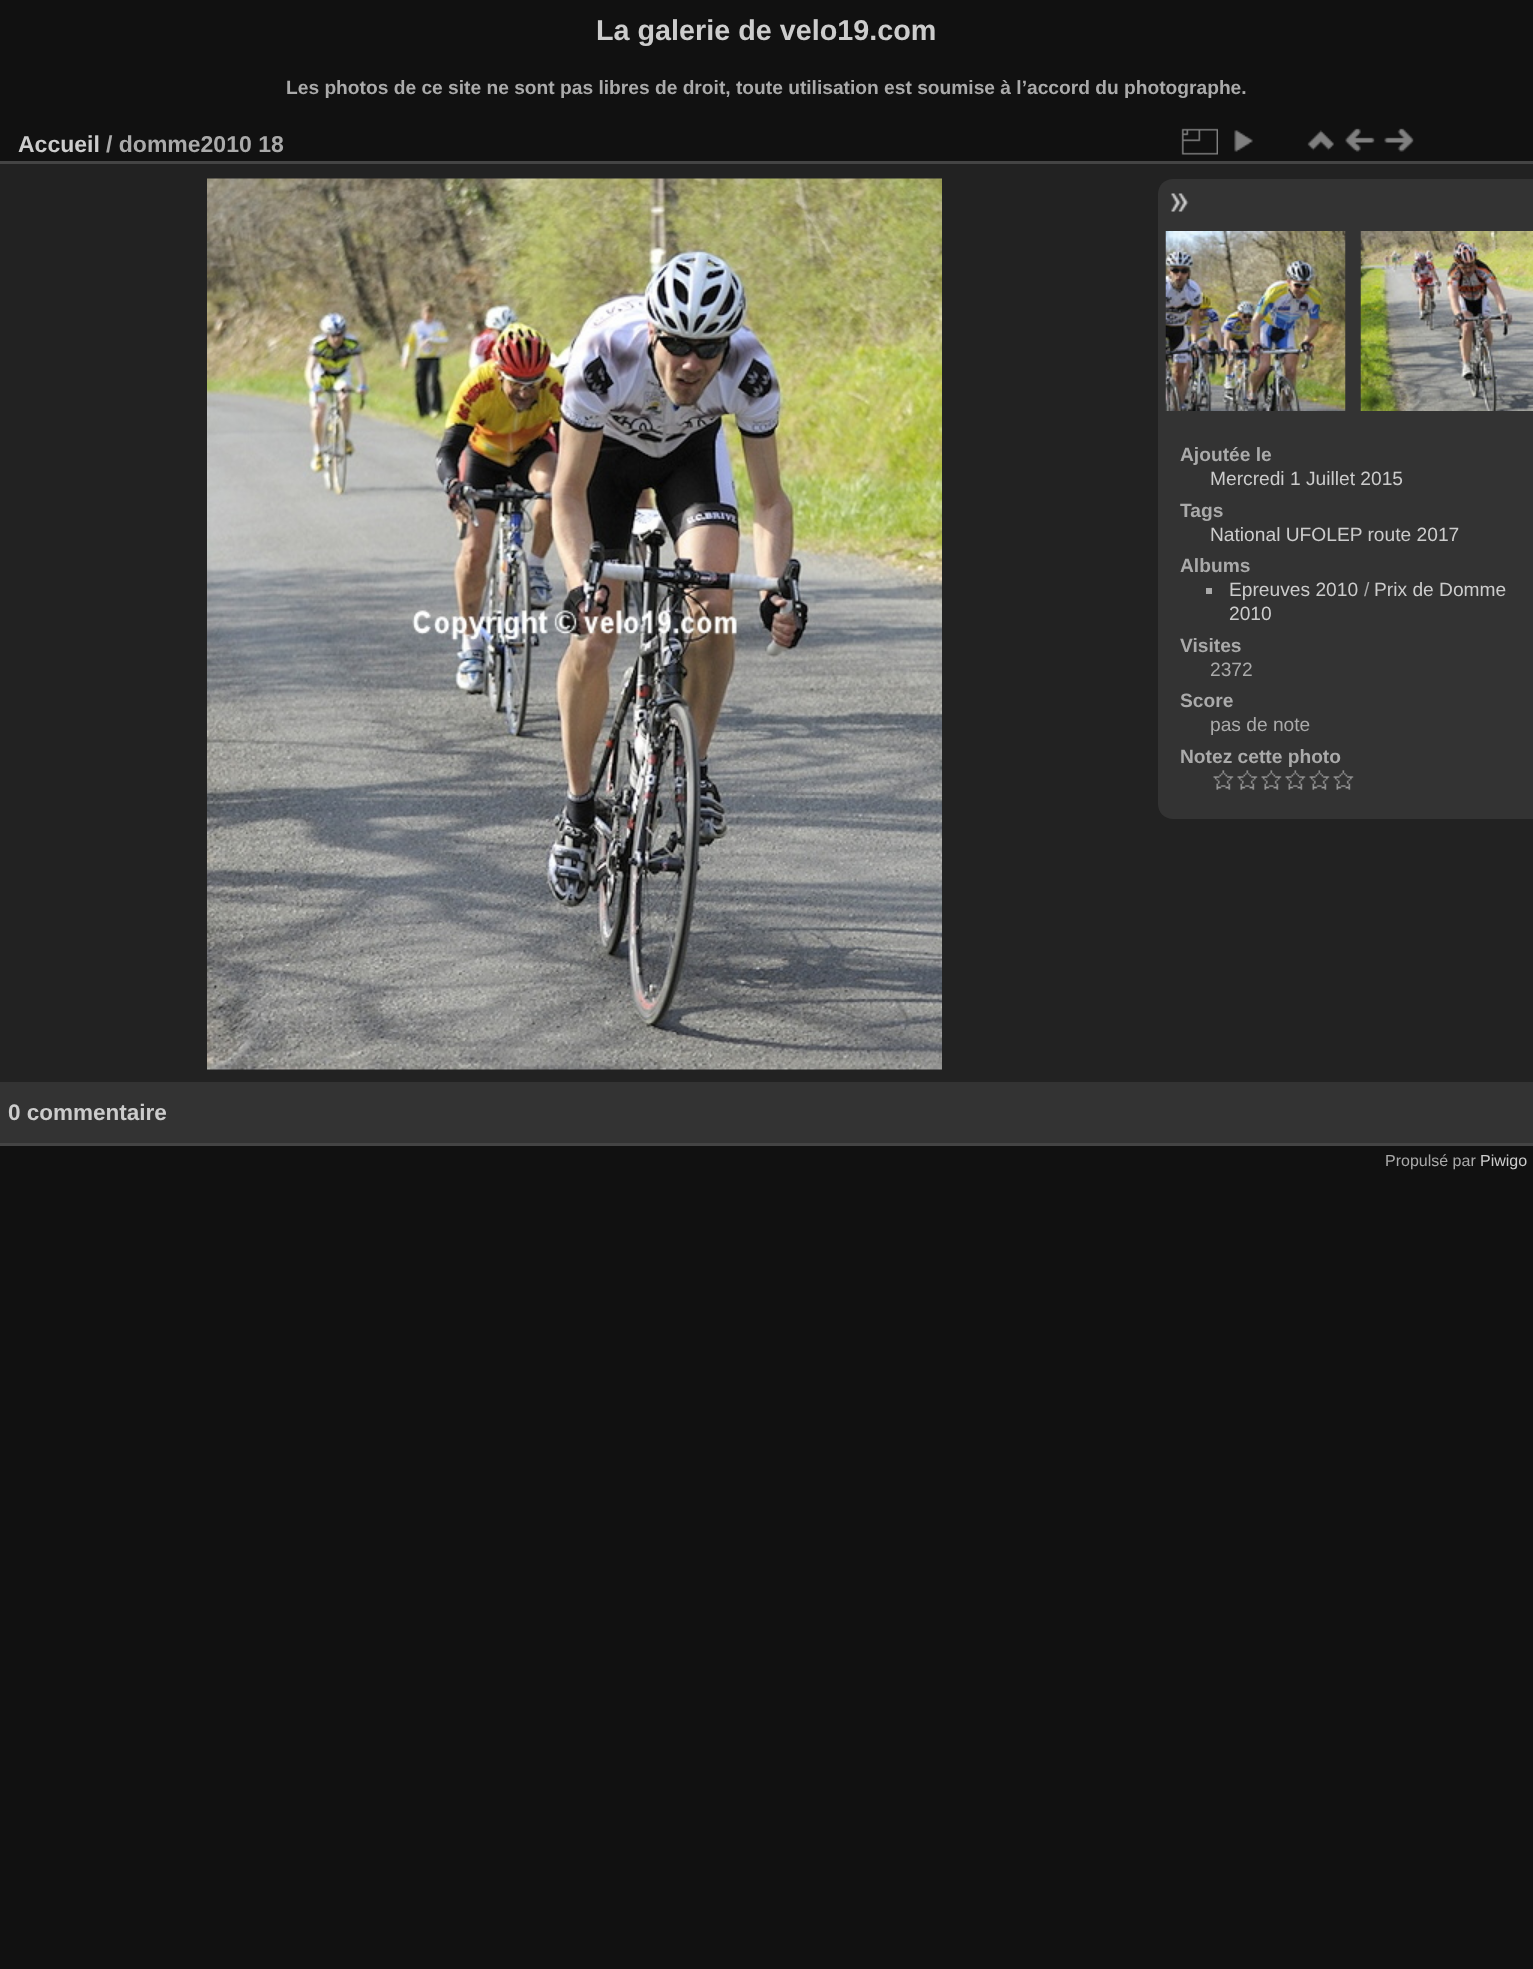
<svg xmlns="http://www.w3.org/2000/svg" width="1533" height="1969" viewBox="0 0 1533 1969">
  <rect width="100%" height="100%" fill="rgb(17,17,17)"/>
  <text x="596" y="40" font-family="Liberation Sans" font-size="28.75" font-weight="bold" fill="rgb(204,204,204)">La galerie de velo19.com</text>
  <text x="286" y="94" font-family="Liberation Sans" font-size="19.2" font-weight="bold" fill="rgb(170,170,170)">Les photos de ce site ne sont pas libres de droit, toute utilisation est soumise à l’accord du photographe.</text>
  <rect x="0" y="164" width="1533" height="918" fill="rgb(34,34,34)"/>
  <rect x="0" y="1143" width="1533" height="3" fill="rgb(68,68,68)"/>
  <rect x="0" y="161" width="1533" height="3" fill="rgb(68,68,68)"/>
  <text x="18" y="152" font-family="Liberation Sans" font-size="23" font-weight="bold" fill="rgb(204,204,204)">Accueil</text>
  <text x="106" y="152" font-family="Liberation Sans" font-size="23" font-weight="bold" fill="rgb(170,170,170)">/ domme2010 18</text>
  <image x="1181" y="128" width="37" height="27" href="pic1.png"/>
  <image x="1234" y="130" width="19" height="22" href="pic2.png"/>
  <image x="1307" y="130" width="27" height="21" href="pic3.png"/>
  <image x="1345" y="128" width="30" height="24" href="pic4.png"/>
  <image x="1384" y="128" width="30" height="24" href="pic5.png"/>
  <image x="207" y="178" width="735" height="892" href="pic6.png"/>
  <path d="M1173 179H1533V819H1173C1164.5 819 1158 812.5 1158 804V194C1158 185.5 1164.5 179 1173 179Z" fill="rgb(51,51,51)"/>
  <image x="1170" y="193" width="19" height="19" href="pic7.png"/>
  <image x="1165" y="231" width="181" height="180" href="pic8.png"/>
  <image x="1360" y="231" width="173" height="180" href="pic9.png"/>
  <text x="1180" y="461" font-family="Liberation Sans" font-size="19.2" font-weight="bold" fill="rgb(170,170,170)">Ajoutée le</text>
  <text x="1210" y="485" font-family="Liberation Sans" font-size="19.2" fill="rgb(204,204,204)">Mercredi 1 Juillet 2015</text>
  <text x="1180" y="517" font-family="Liberation Sans" font-size="19.2" font-weight="bold" fill="rgb(170,170,170)">Tags</text>
  <text x="1210" y="541" font-family="Liberation Sans" font-size="19.2" fill="rgb(204,204,204)">National UFOLEP route 2017</text>
  <text x="1180" y="572" font-family="Liberation Sans" font-size="19.2" font-weight="bold" fill="rgb(170,170,170)">Albums</text>
  <rect x="1206" y="588" width="6" height="6" fill="rgb(170,170,170)"/>
  <text x="1229" y="596" font-family="Liberation Sans" font-size="19.2" fill="rgb(204,204,204)">Epreuves 2010</text>
  <text x="1364" y="596" font-family="Liberation Sans" font-size="19.2" fill="rgb(170,170,170)">/</text>
  <g font-family="Liberation Sans" font-size="19.2" fill="rgb(204,204,204)">
    <text x="1374" y="596">Prix de Domme</text>
    <text x="1229" y="620">2010</text>
  </g>
  <text x="1180" y="652" font-family="Liberation Sans" font-size="19.2" font-weight="bold" fill="rgb(170,170,170)">Visites</text>
  <text x="1210" y="676" font-family="Liberation Sans" font-size="19.2" fill="rgb(170,170,170)">2372</text>
  <text x="1180" y="707" font-family="Liberation Sans" font-size="19.2" font-weight="bold" fill="rgb(170,170,170)">Score</text>
  <text x="1210" y="731" font-family="Liberation Sans" font-size="19.2" fill="rgb(170,170,170)">pas de note</text>
  <text x="1180" y="763" font-family="Liberation Sans" font-size="19.2" font-weight="bold" fill="rgb(170,170,170)">Notez cette photo</text>
  <image x="1213" y="770" width="21" height="20" href="pic10.png"/>
  <image x="1237" y="770" width="21" height="20" href="pic10.png"/>
  <image x="1261" y="770" width="21" height="20" href="pic10.png"/>
  <image x="1285" y="770" width="21" height="20" href="pic11.png"/>
  <image x="1309" y="770" width="21" height="20" href="pic11.png"/>
  <image x="1333" y="770" width="21" height="20" href="pic11.png"/>
  <rect x="0" y="1082" width="1533" height="61" fill="rgb(51,51,51)"/>
  <text x="8" y="1120" font-family="Liberation Sans" font-size="22.5" font-weight="bold" fill="rgb(204,204,204)">0 commentaire</text>
  <text x="1385" y="1166" font-family="Liberation Sans" font-size="16" fill="rgb(170,170,170)">Propulsé par</text>
  <text x="1480" y="1166" font-family="Liberation Sans" font-size="16" fill="rgb(204,204,204)">Piwigo</text>
</svg>
